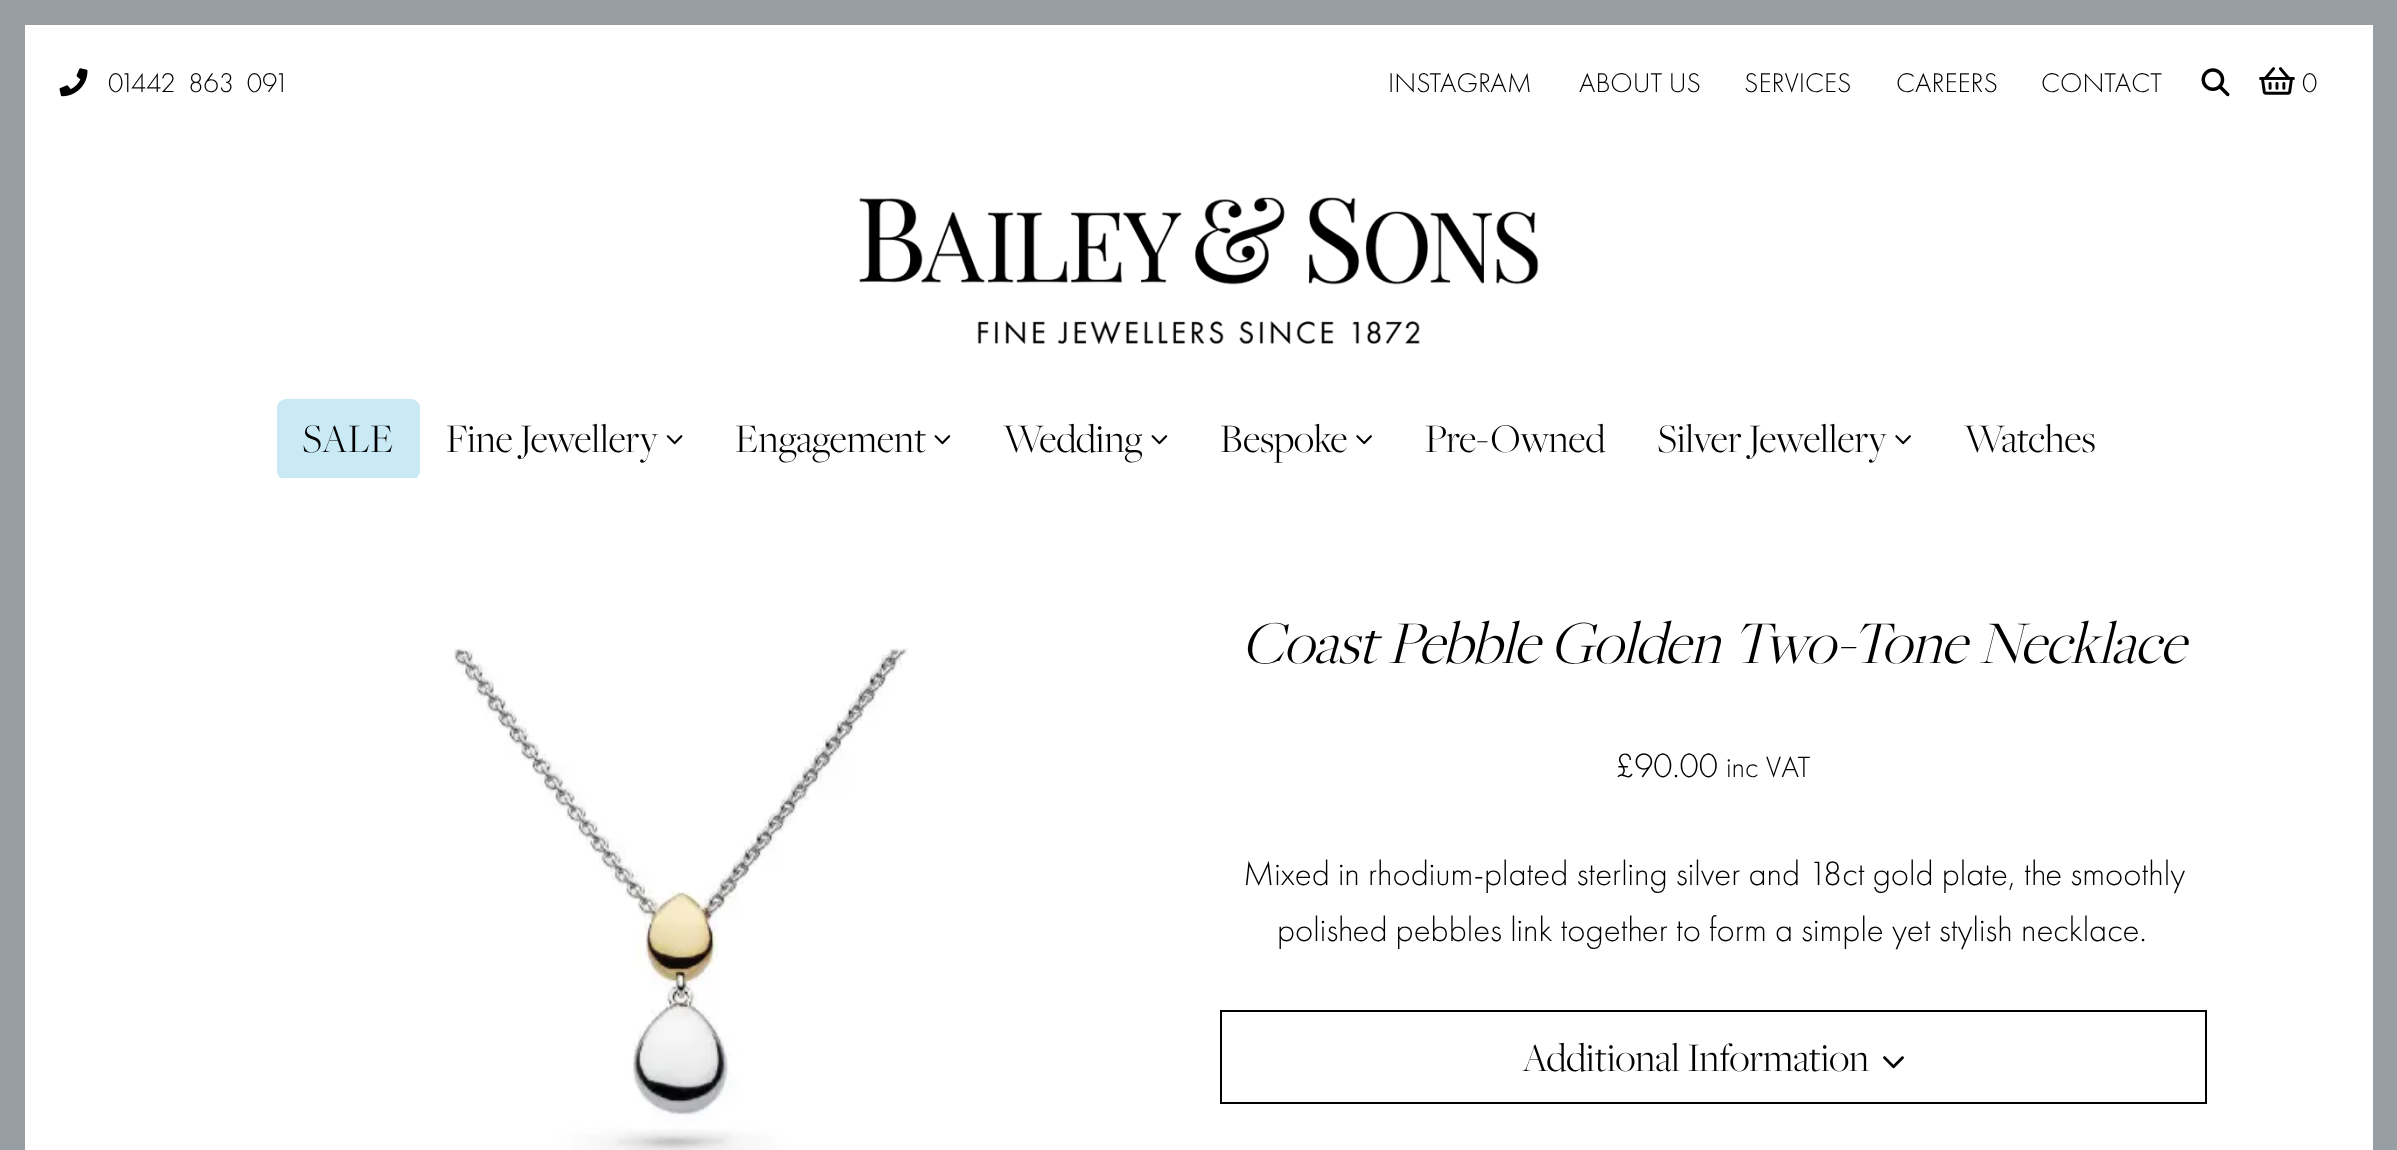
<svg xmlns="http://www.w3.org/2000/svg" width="2397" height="1150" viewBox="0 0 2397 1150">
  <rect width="100%" height="100%" fill="rgb(255,255,255)"/>
  <rect x="12.5" y="12.5" width="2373" height="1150" fill="none" stroke="rgb(152,158,161)" stroke-width="25"/>
  <image x="59" y="68" width="29" height="29" href="pic1.png"/>
  <g font-family="Futura PT" font-size="28" font-weight="300" fill="rgb(0,0,0)">
    <text x="108" y="92" word-spacing="6">01442 863 091</text>
    <text x="1388" y="92">INSTAGRAM</text>
    <text x="1579" y="92">ABOUT US</text>
    <text x="1744" y="92">SERVICES</text>
    <text x="1896" y="92">CAREERS</text>
    <text x="2041" y="92">CONTACT</text>
  </g>
  <image x="2201" y="68" width="29" height="29" href="pic2.png"/>
  <image x="2259" y="67" width="36" height="28" href="pic3.png"/>
  <text x="2302" y="92" font-family="Futura PT" font-size="28" font-weight="300" fill="rgb(0,0,0)">0</text>
  <image x="859" y="197" width="680" height="147" href="pic4.png"/>
  <rect x="277" y="399" width="143" height="81" rx="9" fill="rgb(201,233,244)"/>
  <rect x="282" y="478" width="135" height="2" fill="rgb(255,255,255)"/>
  <g font-family="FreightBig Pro" font-size="42" font-weight="300" fill="rgb(0,0,0)">
    <text x="302" y="452">SALE</text>
    <text x="446" y="452">Fine Jewellery</text>
  </g>
  <image x="666" y="435" width="17" height="10" href="pic5.png"/>
  <text x="735" y="452" font-family="FreightBig Pro" font-size="42" font-weight="300" fill="rgb(0,0,0)">Engagement</text>
  <image x="934" y="435" width="17" height="10" href="pic6.png"/>
  <text x="1003" y="452" font-family="FreightBig Pro" font-size="42" font-weight="300" fill="rgb(0,0,0)">Wedding</text>
  <image x="1151" y="435" width="17" height="10" href="pic6.png"/>
  <text x="1220" y="452" font-family="FreightBig Pro" font-size="42" font-weight="300" fill="rgb(0,0,0)">Bespoke</text>
  <image x="1356" y="435" width="16" height="10" href="pic7.png"/>
  <g font-family="FreightBig Pro" font-size="42" font-weight="300" fill="rgb(0,0,0)">
    <text x="1425" y="452">Pre-Owned</text>
    <text x="1657" y="452">Silver Jewellery</text>
  </g>
  <image x="1895" y="435" width="16" height="10" href="pic7.png"/>
  <text x="1964" y="452" font-family="FreightBig Pro" font-size="42" font-weight="300" fill="rgb(0,0,0)">Watches</text>
  <image x="454" y="648" width="454" height="502" href="pic8.png"/>
  <text x="1242" y="663" font-family="FreightBig Pro" font-size="63" font-weight="300" font-style="italic" fill="rgb(0,0,0)">Coast Pebble Golden Two-Tone Necklace</text>
  <text x="1615" y="777" font-family="Futura PT" font-size="35" font-weight="300" fill="rgb(0,0,0)">£90.00</text>
  <text x="1726" y="777" font-family="Futura PT" font-size="30.5" font-weight="300" fill="rgb(0,0,0)">inc VAT</text>
  <g font-family="Futura PT" font-size="35" font-weight="300" fill="rgb(0,0,0)">
    <text x="1243" y="885">Mixed in rhodium-plated sterling silver and 18ct gold plate, the smoothly</text>
    <text x="1277" y="941">polished pebbles link together to form a simple yet stylish necklace.</text>
  </g>
  <rect x="1221" y="1011" width="985" height="92" fill="none" stroke="rgb(0,0,0)" stroke-width="2"/>
  <text x="1522" y="1071" font-family="FreightBig Pro" font-size="42" font-weight="300" fill="rgb(0,0,0)">Additional Information</text>
  <image x="1883" y="1056" width="21" height="13" href="pic9.png"/>
</svg>
